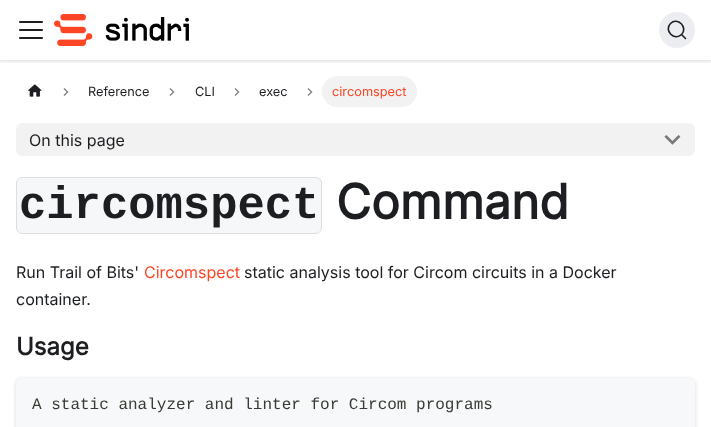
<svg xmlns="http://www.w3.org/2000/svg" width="711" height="427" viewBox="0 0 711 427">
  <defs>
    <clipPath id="clip1"><rect x="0" y="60" width="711" height="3"/></clipPath>
  </defs>
  <rect width="100%" height="100%" fill="rgb(255,255,255)"/>
  <g clip-path="url(#clip1)">
    <rect x="-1" y="0" width="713" height="62" fill="rgba(0,0,0,0.1)" filter="blur(1.5px)"/>
  </g>
  <image x="19" y="21" width="24" height="18" href="pic1.png"/>
  <image x="54" y="14" width="135" height="32" href="pic2.png"/>
  <circle cx="677" cy="30" r="18" fill="rgb(235,237,240)"/>
  <path d="M681.5 34.5L685.5 38.5L681.5 34.5C674.5 41.5 663.5 30.5 670.5 23.5C677.5 16.5 688.5 27.5 681.5 34.5Z" fill="none" stroke="rgb(28,30,33)" stroke-width="1.6" stroke-linecap="round" stroke-linejoin="round"/>
  <image x="28" y="84" width="14" height="13" href="pic3.png"/>
  <image x="63" y="88" width="6" height="8" href="pic4.png"/>
  <text x="88" y="96" font-family="Inter" font-size="12.75" fill="rgb(28,30,33)">Reference</text>
  <image x="169" y="88" width="6" height="8" href="pic4.png"/>
  <text x="195" y="96" font-family="Inter" font-size="12.75" fill="rgb(28,30,33)">CLI</text>
  <image x="234" y="88" width="6" height="8" href="pic4.png"/>
  <text x="259" y="96" font-family="Inter" font-size="12.75" fill="rgb(28,30,33)">exec</text>
  <image x="307" y="88" width="6" height="8" href="pic4.png"/>
  <rect x="322" y="76" width="95" height="31" rx="15.5" fill="rgb(242,242,242)"/>
  <text x="332" y="96" font-family="Inter" font-size="12.75" fill="rgb(254,70,38)">circomspect</text>
  <rect x="16" y="123" width="679" height="33" rx="6" fill="rgb(242,242,242)"/>
  <text x="29" y="146" font-family="Inter" font-size="16" fill="rgb(28,30,33)">On this page</text>
  <image x="664" y="135" width="17" height="10" href="pic5.png"/>
  <rect x="16.5" y="177.5" width="305" height="56" rx="5.5" fill="rgb(246,247,248)" stroke="rgb(221,222,223)"/>
  <text x="19" y="218" font-family="Liberation Mono" font-size="45.5" font-weight="bold" fill="rgb(28,30,33)">circomspect</text>
  <text x="336" y="219" font-family="Inter" font-size="48" font-weight="bold" fill="rgb(28,30,33)">Command</text>
  <text x="16" y="278" font-family="Inter" font-size="16" fill="rgb(28,30,33)">Run Trail of Bits'</text>
  <text x="144" y="278" font-family="Inter" font-size="16" fill="rgb(254,70,38)">Circomspect</text>
  <g font-family="Inter" font-size="16" fill="rgb(28,30,33)">
    <text x="244" y="278">static analysis tool for Circom circuits in a Docker</text>
    <text x="16" y="305">container.</text>
  </g>
  <text x="16" y="355" font-family="Inter" font-size="24" font-weight="bold" fill="rgb(28,30,33)">Usage</text>
  <rect x="15" y="378" width="681" height="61" rx="7" fill="rgba(0,0,0,0.1)" filter="blur(1.5px)"/>
  <rect x="16" y="378" width="679" height="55" rx="6" fill="rgb(246,248,250)"/>
  <text x="32" y="409" font-family="Liberation Mono" font-size="16" fill="rgb(57,58,52)">A static analyzer and linter for Circom programs</text>
</svg>
